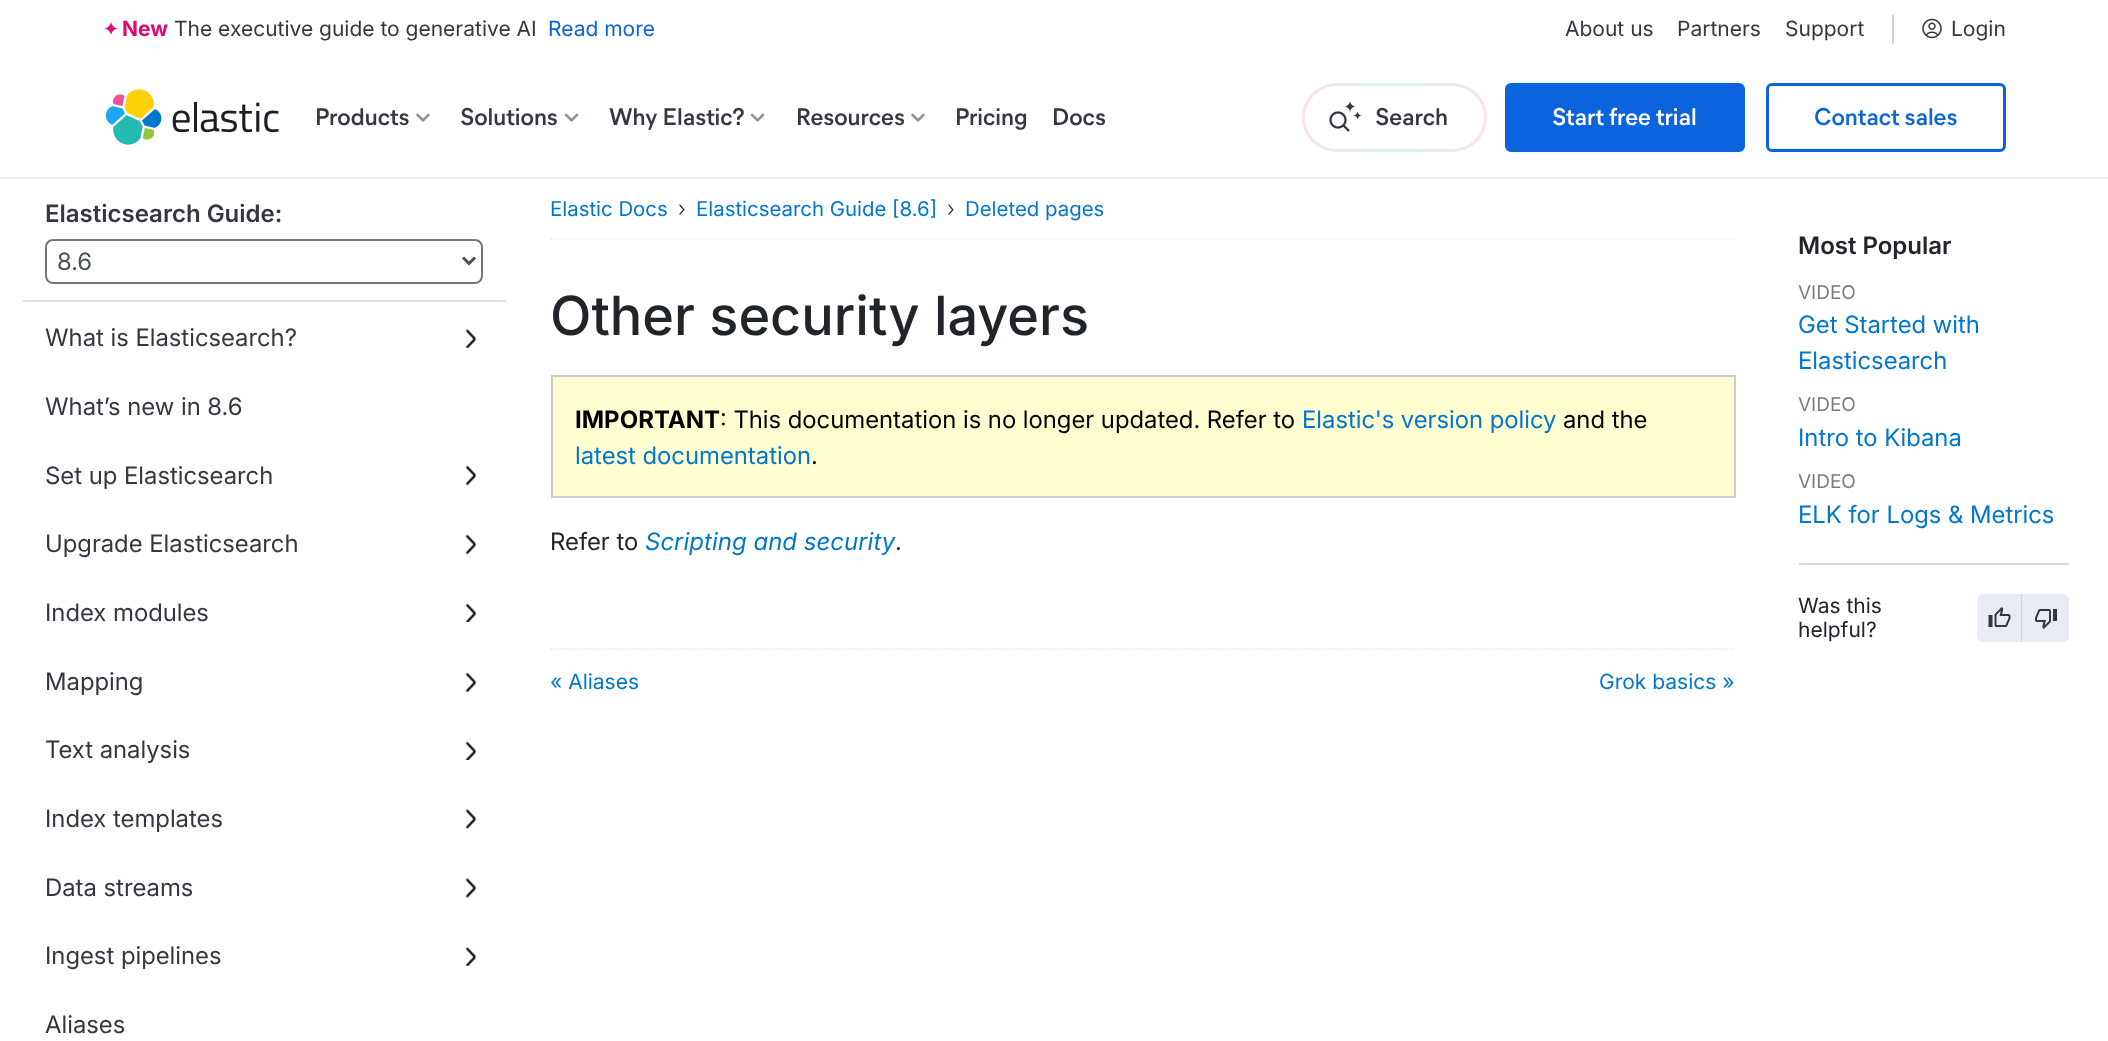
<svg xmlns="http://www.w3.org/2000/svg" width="2108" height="1041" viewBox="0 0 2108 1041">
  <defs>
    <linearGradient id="g1" gradientUnits="userSpaceOnUse" x1="1302" y1="117" x2="1671" y2="117"><stop offset="0" stop-color="rgb(252,225,237)"/><stop offset="0.25" stop-color="rgb(212,244,243)"/><stop offset="0.5" stop-color="rgb(252,225,237)"/><stop offset="0.75" stop-color="rgb(212,244,243)"/><stop offset="1" stop-color="rgb(252,225,237)"/></linearGradient>
  </defs>
  <rect width="100%" height="100%" fill="rgb(255,255,255)"/>
  <rect x="0" y="177" width="2108" height="2" fill="rgb(238,239,241)"/>
  <image x="104" y="21" width="15" height="15" href="pic1.png"/>
  <text x="122" y="36" font-family="Inter" font-size="21" font-weight="bold" fill="rgb(221,10,115)">New</text>
  <text x="174" y="36" font-family="'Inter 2'" font-size="21" fill="rgb(52,55,65)">The executive guide to generative AI</text>
  <text x="548" y="36" font-family="'Inter 2'" font-size="21" fill="rgb(11,100,221)">Read more</text>
  <g font-family="'Inter 2'" font-size="21" fill="rgb(52,55,65)">
    <text x="1565" y="36">About us</text>
    <text x="1677" y="36">Partners</text>
    <text x="1785" y="36">Support</text>
  </g>
  <text x="1889" y="38" font-family="Inter" font-size="24" fill="rgb(204,204,204)">|</text>
  <image x="1922" y="18" width="20" height="21" href="pic2.png"/>
  <text x="1951" y="36" font-family="'Inter 2'" font-size="21" fill="rgb(52,55,65)">Login</text>
  <image x="105" y="89" width="174" height="56" href="pic3.png"/>
  <text x="315" y="125" font-family="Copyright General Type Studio" font-size="24" font-weight="600" fill="rgb(52,55,65)">Products</text>
  <image x="416" y="113" width="14" height="9" href="pic4.png"/>
  <text x="460" y="125" font-family="Copyright General Type Studio" font-size="24" font-weight="600" fill="rgb(52,55,65)">Solutions</text>
  <image x="564" y="113" width="15" height="9" href="pic5.png"/>
  <text x="609" y="125" font-family="Copyright General Type Studio" font-size="24" font-weight="600" fill="rgb(52,55,65)">Why Elastic?</text>
  <image x="750" y="113" width="15" height="9" href="pic5.png"/>
  <text x="796" y="125" font-family="Copyright General Type Studio" font-size="24" font-weight="600" fill="rgb(52,55,65)">Resources</text>
  <image x="911" y="113" width="14" height="9" href="pic4.png"/>
  <g font-family="Copyright General Type Studio" font-size="24" font-weight="600" fill="rgb(52,55,65)">
    <text x="955" y="125">Pricing</text>
    <text x="1052" y="125">Docs</text>
  </g>
  <rect x="1302" y="83" width="185" height="69" rx="34.5" fill="url(#g1)"/>
  <rect x="1305" y="86" width="179" height="63" rx="31.5" fill="rgb(255,255,255)"/>
  <image x="1329" y="101" width="33" height="31" href="pic6.png"/>
  <text x="1375" y="125" font-family="Copyright General Type Studio" font-size="24" font-weight="600" fill="rgb(52,55,65)">Search</text>
  <rect x="1506.5" y="84.5" width="237" height="66" rx="4.5" fill="rgb(11,100,221)" stroke="rgb(11,100,221)" stroke-width="3"/>
  <text x="1552" y="125" font-family="Copyright General Type Studio" font-size="24" font-weight="600" fill="rgb(255,255,255)">Start free trial</text>
  <rect x="1767.5" y="84.5" width="237" height="66" rx="4.5" fill="none" stroke="rgb(11,100,221)" stroke-width="3"/>
  <text x="1814" y="125" font-family="Copyright General Type Studio" font-size="24" font-weight="600" fill="rgb(11,100,221)">Contact sales</text>
  <rect x="23" y="300" width="483" height="2" fill="rgb(222,226,230)"/>
  <text x="45" y="222" font-family="Inter" font-size="24" font-weight="600" fill="rgb(52,55,65)">Elasticsearch Guide:</text>
  <rect x="46" y="240" width="436" height="43" rx="7" fill="none" stroke="rgb(118,118,118)" stroke-width="2"/>
  <path d="M463 257.5L469 263.5L475 257.5" fill="none" stroke="rgb(73,80,87)" stroke-width="3"/>
  <text x="57" y="270" font-family="Inter" font-size="24" fill="rgb(73,80,87)">8.6</text>
  <text x="45" y="346" font-family="Inter" font-size="24" fill="rgb(52,55,65)">What is Elasticsearch?</text>
  <image x="465" y="329" width="12" height="19" href="pic7.png"/>
  <g font-family="Inter" font-size="24" fill="rgb(52,55,65)">
    <text x="45" y="415">What’s new in 8.6</text>
    <text x="45" y="484">Set up Elasticsearch</text>
  </g>
  <image x="465" y="465" width="12" height="21" href="pic8.png"/>
  <text x="45" y="552" font-family="Inter" font-size="24" fill="rgb(52,55,65)">Upgrade Elasticsearch</text>
  <image x="465" y="534" width="12" height="21" href="pic8.png"/>
  <text x="45" y="621" font-family="Inter" font-size="24" fill="rgb(52,55,65)">Index modules</text>
  <image x="465" y="603" width="12" height="19" href="pic9.png"/>
  <text x="45" y="690" font-family="Inter" font-size="24" fill="rgb(52,55,65)">Mapping</text>
  <image x="465" y="672" width="12" height="20" href="pic10.png"/>
  <text x="45" y="758" font-family="Inter" font-size="24" fill="rgb(52,55,65)">Text analysis</text>
  <image x="465" y="741" width="12" height="19" href="pic9.png"/>
  <text x="45" y="827" font-family="Inter" font-size="24" fill="rgb(52,55,65)">Index templates</text>
  <image x="465" y="809" width="12" height="20" href="pic11.png"/>
  <text x="45" y="896" font-family="Inter" font-size="24" fill="rgb(52,55,65)">Data streams</text>
  <image x="465" y="878" width="12" height="20" href="pic11.png"/>
  <text x="45" y="964" font-family="Inter" font-size="24" fill="rgb(52,55,65)">Ingest pipelines</text>
  <image x="465" y="947" width="12" height="19" href="pic7.png"/>
  <text x="45" y="1033" font-family="Inter" font-size="24" fill="rgb(52,55,65)">Aliases</text>
  <path d="M550.5 239H1735.5" fill="none" stroke="rgb(236,236,236)" stroke-width="1.5" stroke-dasharray="1.5 1.5"/>
  <text x="550" y="216" font-family="'Inter 2'" font-size="20.4" fill="rgb(0,119,204)">Elastic Docs</text>
  <text x="678" y="216" font-family="Inter" font-size="21" font-weight="300" fill="rgb(33,37,41)">›</text>
  <text x="696" y="216" font-family="'Inter 2'" font-size="20.4" fill="rgb(0,119,204)">Elasticsearch Guide [8.6]</text>
  <text x="947" y="216" font-family="Inter" font-size="21" font-weight="300" fill="rgb(33,37,41)">›</text>
  <text x="965" y="216" font-family="'Inter 2'" font-size="20.4" fill="rgb(0,119,204)">Deleted pages</text>
  <text x="550" y="335" font-family="Inter" font-size="54" font-weight="500" fill="rgb(33,37,41)">Other security layers</text>
  <rect x="552" y="376" width="1183" height="121" fill="rgb(255,255,210)" stroke="rgb(204,204,204)" stroke-width="2"/>
  <text x="575" y="428" font-family="Inter" font-size="24" font-weight="bold" fill="rgb(0,0,0)">IMPORTANT</text>
  <text x="720" y="428" font-family="Inter" font-size="24" fill="rgb(0,0,0)">: This documentation is no longer updated. Refer to</text>
  <text x="1302" y="428" font-family="Inter" font-size="24" fill="rgb(0,119,204)">Elastic's version policy</text>
  <text x="1563" y="428" font-family="Inter" font-size="24" fill="rgb(0,0,0)">and the</text>
  <text x="575" y="464" font-family="Inter" font-size="24" fill="rgb(0,119,204)">latest documentation</text>
  <text x="811" y="464" font-family="Inter" font-size="24" fill="rgb(0,0,0)">.</text>
  <text x="550" y="550" font-family="Inter" font-size="24" fill="rgb(33,37,41)">Refer to</text>
  <text x="645" y="550" font-family="Inter" font-size="24" font-style="italic" fill="rgb(0,119,204)">Scripting and security</text>
  <text x="895" y="550" font-family="Inter" font-size="24" fill="rgb(33,37,41)">.</text>
  <path d="M550.5 649H1735.5" fill="none" stroke="rgb(232,232,232)" stroke-width="1.5" stroke-dasharray="1.5 1.5"/>
  <g font-family="'Inter 2'" font-size="21" fill="rgb(0,119,204)">
    <text x="550" y="689">« Aliases</text>
    <text x="1599" y="689">Grok basics »</text>
  </g>
  <text x="1798" y="254" font-family="Inter" font-size="24" font-weight="600" fill="rgb(33,37,41)">Most Popular</text>
  <text x="1798" y="299" font-family="'Inter 2'" font-size="19" fill="rgb(122,124,127)">VIDEO</text>
  <g font-family="Inter" font-size="24" fill="rgb(0,119,204)">
    <text>
      <tspan x="1798" y="333">Get Started with</tspan>
      <tspan x="1798" y="369">Elasticsearch</tspan>
    </text>
  </g>
  <text x="1798" y="411" font-family="'Inter 2'" font-size="19" fill="rgb(122,124,127)">VIDEO</text>
  <text x="1798" y="446" font-family="Inter" font-size="24" fill="rgb(0,119,204)">Intro to Kibana</text>
  <text x="1798" y="488" font-family="'Inter 2'" font-size="19" fill="rgb(122,124,127)">VIDEO</text>
  <text x="1798" y="523" font-family="Inter" font-size="24" fill="rgb(0,119,204)">ELK for Logs &amp; Metrics</text>
  <rect x="1799" y="563" width="270" height="2" fill="rgb(211,218,230)"/>
  <text x="1798" y="613" font-family="'Inter 2'" font-size="21" fill="rgb(33,37,41)">Was this</text>
  <path d="M1983 594H2022V642H1983C1979.5 642 1977 639.5 1977 636V600C1977 596.5 1979.5 594 1983 594Z" fill="rgb(233,237,243)"/>
  <image x="1988" y="607" width="23" height="20" href="pic12.png"/>
  <rect x="2021" y="594" width="1" height="48" fill="rgb(210,213,219)"/>
  <path d="M2022 594H2063C2066.5 594 2069 596.5 2069 600V636C2069 639.5 2066.5 642 2063 642H2022Z" fill="rgb(233,237,243)"/>
  <image x="2035" y="609" width="22" height="20" href="pic13.png"/>
  <text x="1798" y="637" font-family="'Inter 2'" font-size="21" fill="rgb(33,37,41)">helpful?</text>
</svg>
